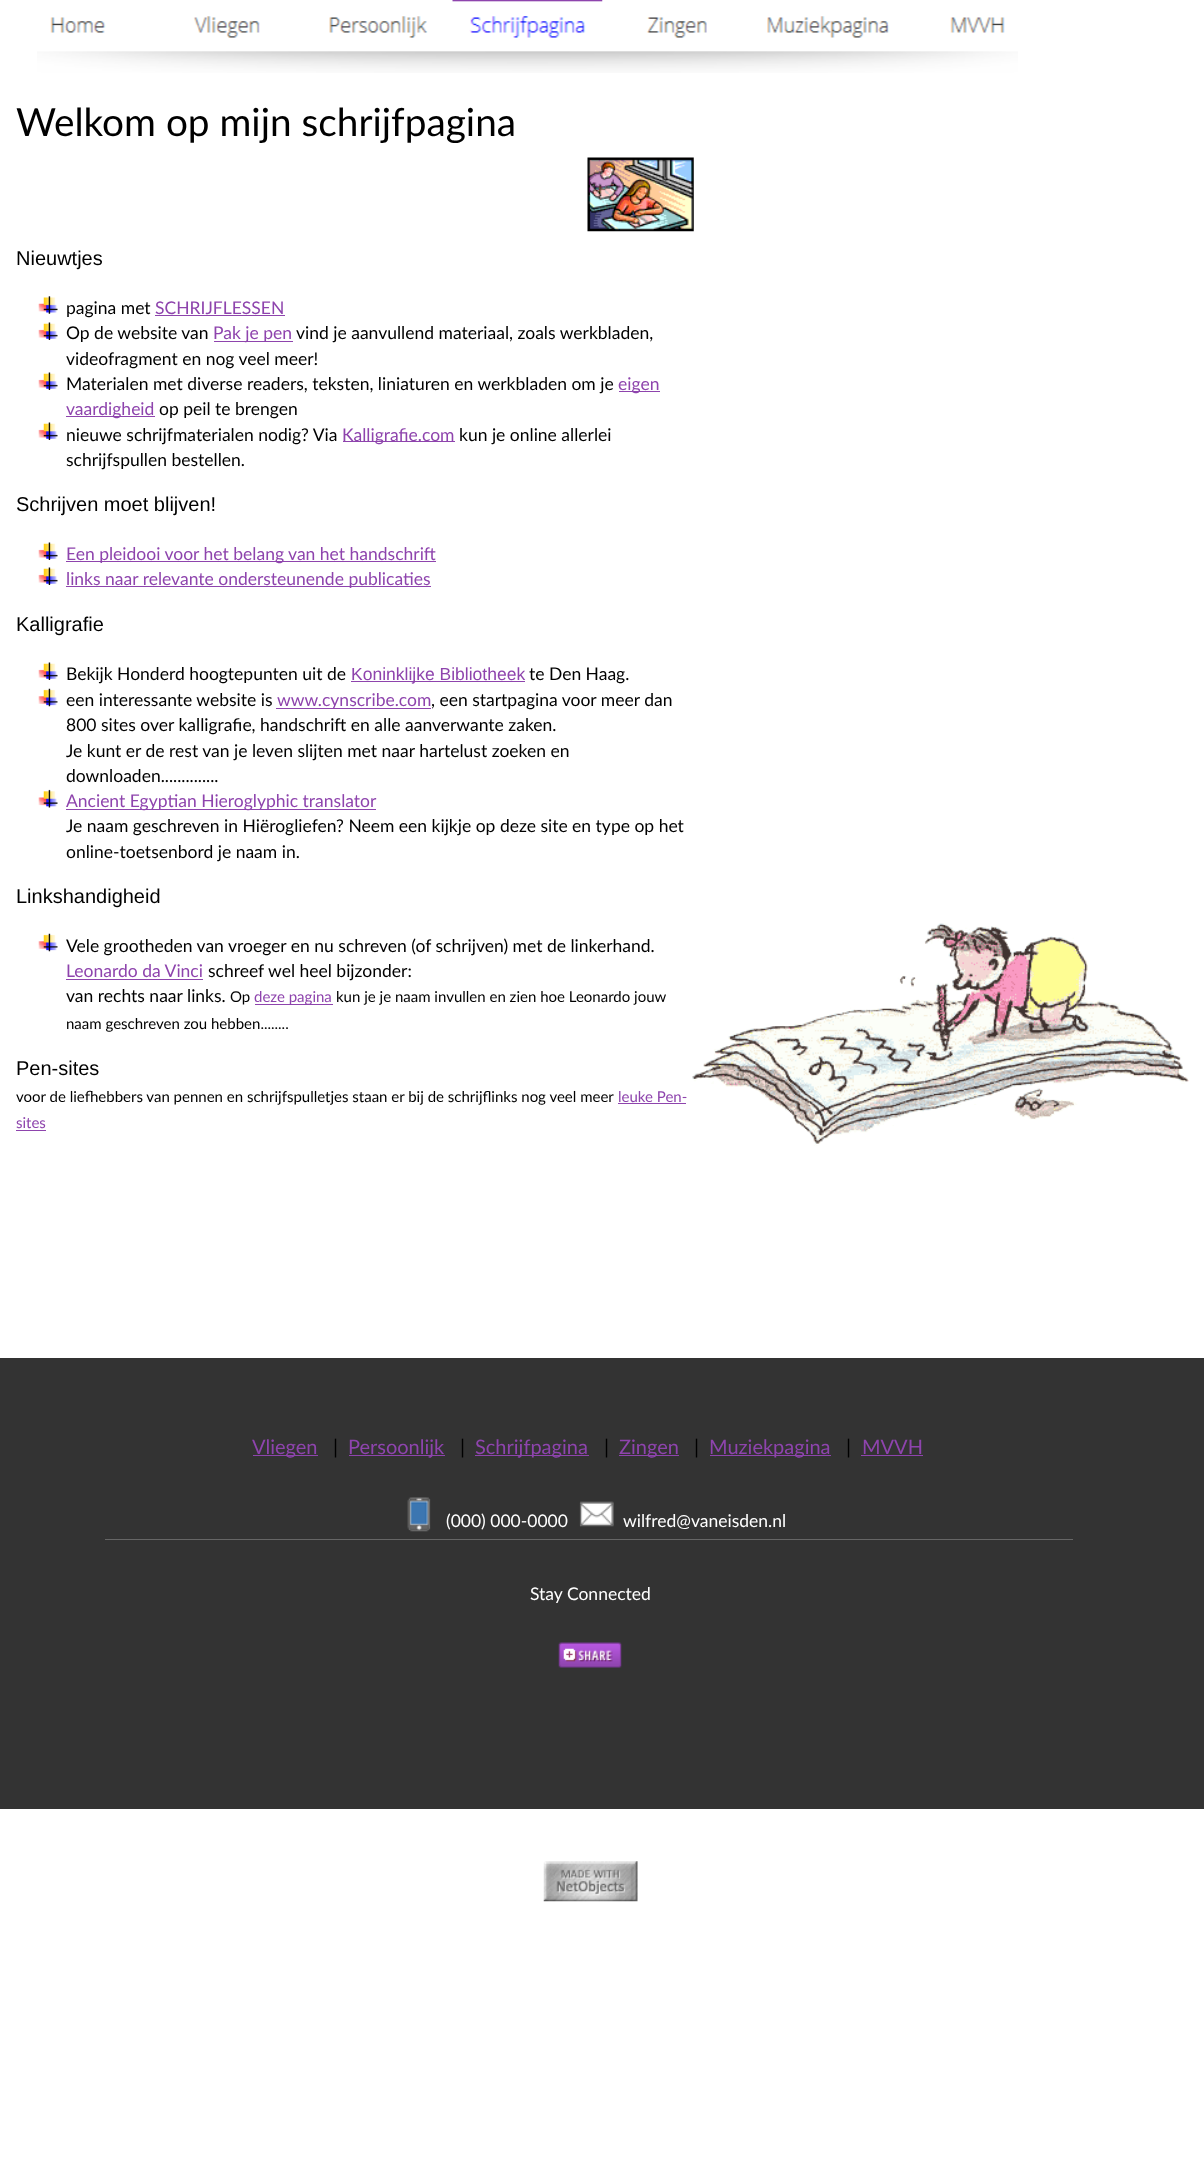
<svg xmlns="http://www.w3.org/2000/svg" width="1204" height="2170" viewBox="0 0 1204 2170">
  <rect width="100%" height="100%" fill="rgb(255,255,255)"/>
  <image x="37" y="51" width="981" height="22" href="pic1.png"/>
  <image x="50" y="17" width="56" height="16" href="pic2.png"/>
  <image x="193" y="16" width="67" height="22" href="pic3.png"/>
  <image x="329" y="16" width="99" height="22" href="pic4.png"/>
  <image x="452" y="0" width="151" height="38" href="pic5.png"/>
  <image x="602" y="0" width="105" height="38" href="pic6.png"/>
  <image x="767" y="16" width="123" height="22" href="pic7.png"/>
  <image x="950" y="17" width="55" height="16" href="pic8.png"/>
  <text x="16" y="136" font-family="Lato" font-size="38.75" fill="rgb(0,0,0)">Welkom op mijn schrijfpagina</text>
  <image x="587" y="157" width="107" height="75" href="pic9.png"/>
  <text x="16" y="265" font-family="Liberation Sans" font-size="20" fill="rgb(0,0,0)">Nieuwtjes</text>
  <image x="38" y="296" width="20" height="18" href="pic10.png"/>
  <text x="66" y="314" font-family="Lato" font-size="17.5" fill="rgb(0,0,0)">pagina met</text>
  <text x="155" y="314" font-family="Lato" font-size="17.5" fill="rgb(142,68,173)">SCHRIJFLESSEN</text>
  <rect x="155" y="315" width="130" height="1" fill="rgb(142,68,173)"/>
  <image x="38" y="322" width="20" height="18" href="pic11.png"/>
  <text x="66" y="339" font-family="Lato" font-size="17.5" fill="rgb(0,0,0)">Op de website van</text>
  <rect x="214" y="341" width="79" height="1" fill="rgb(142,68,173)"/>
  <text x="213" y="339" font-family="Lato" font-size="17.5" fill="rgb(142,68,173)">Pak je pen</text>
  <g font-family="Lato" font-size="17.5" fill="rgb(0,0,0)">
    <text x="296" y="339">vind je aanvullend materiaal, zoals werkbladen,</text>
    <text x="66" y="365">videofragment en nog veel meer!</text>
  </g>
  <image x="38" y="372" width="20" height="18" href="pic11.png"/>
  <text x="66" y="390" font-family="Lato" font-size="17.5" fill="rgb(0,0,0)">Materialen met diverse readers, teksten, liniaturen en werkbladen om je</text>
  <rect x="619" y="391" width="41" height="1" fill="rgb(142,68,173)"/>
  <text x="618" y="390" font-family="Lato" font-size="17.5" fill="rgb(142,68,173)">eigen</text>
  <rect x="66" y="416" width="89" height="1" fill="rgb(142,68,173)"/>
  <text x="66" y="415" font-family="Lato" font-size="17.5" fill="rgb(142,68,173)">vaardigheid</text>
  <text x="159" y="415" font-family="Lato" font-size="17.5" fill="rgb(0,0,0)">op peil te brengen</text>
  <image x="38" y="422" width="20" height="18" href="pic11.png"/>
  <text x="66" y="441" font-family="Lato" font-size="17.5" fill="rgb(0,0,0)">nieuwe schrijfmaterialen nodig? Via</text>
  <rect x="343" y="441" width="112" height="1" fill="rgb(142,68,173)"/>
  <text x="342" y="441" font-family="Lato" font-size="17.5" fill="rgb(142,68,173)">Kalligrafie.com</text>
  <g font-family="Lato" font-size="17.5" fill="rgb(0,0,0)">
    <text x="459" y="441">kun je online allerlei</text>
    <text x="66" y="466">schrijfspullen bestellen.</text>
  </g>
  <text x="16" y="511" font-family="Liberation Sans" font-size="20" fill="rgb(0,0,0)">Schrijven moet blijven!</text>
  <image x="38" y="542" width="20" height="18" href="pic11.png"/>
  <rect x="66" y="561" width="370" height="1" fill="rgb(142,68,173)"/>
  <text x="66" y="560" font-family="Lato" font-size="17.5" fill="rgb(142,68,173)">Een pleidooi voor het belang van het handschrift</text>
  <image x="38" y="567" width="20" height="18" href="pic11.png"/>
  <rect x="66" y="586" width="365" height="1" fill="rgb(142,68,173)"/>
  <text x="66" y="585" font-family="Lato" font-size="17.5" fill="rgb(142,68,173)">links naar relevante ondersteunende publicaties</text>
  <text x="16" y="631" font-family="Liberation Sans" font-size="20" fill="rgb(0,0,0)">Kalligrafie</text>
  <image x="38" y="662" width="20" height="18" href="pic11.png"/>
  <text x="66" y="680" font-family="Lato" font-size="17.5" fill="rgb(0,0,0)">Bekijk Honderd hoogtepunten uit de</text>
  <rect x="351" y="681" width="174" height="1" fill="rgb(142,68,173)"/>
  <text x="351" y="680" font-family="Liberation Sans" font-size="17.5" fill="rgb(142,68,173)">Koninklijke Bibliotheek</text>
  <text x="529" y="680" font-family="Lato" font-size="17.5" fill="rgb(0,0,0)">te Den Haag.</text>
  <image x="38" y="688" width="20" height="19" href="pic12.png"/>
  <text x="66" y="706" font-family="Lato" font-size="17.5" fill="rgb(0,0,0)">een interessante website is</text>
  <rect x="276" y="708" width="155" height="1" fill="rgb(142,68,173)"/>
  <text x="277" y="706" font-family="Lato" font-size="17.5" fill="rgb(142,68,173)">www.cynscribe.com</text>
  <g font-family="Lato" font-size="17.5" fill="rgb(0,0,0)">
    <text x="431" y="706">, een startpagina voor meer dan</text>
    <text>
      <tspan x="66" y="731">800 sites over kalligrafie, handschrift en alle aanverwante zaken.</tspan>
      <tspan x="66" y="757">Je kunt er de rest van je leven slijten met naar hartelust zoeken en</tspan>
      <tspan x="66" y="782">downloaden..............</tspan>
    </text>
  </g>
  <image x="38" y="789" width="20" height="19" href="pic13.png"/>
  <rect x="66" y="809" width="310" height="1" fill="rgb(142,68,173)"/>
  <text x="66" y="807" font-family="Lato" font-size="17.5" fill="rgb(142,68,173)">Ancient Egyptian Hieroglyphic translator</text>
  <g font-family="Lato" font-size="17.5" fill="rgb(0,0,0)">
    <text>
      <tspan x="66" y="832">Je naam geschreven in Hiërogliefen? Neem een kijkje op deze site en type op het</tspan>
      <tspan x="66" y="858">online-toetsenbord je naam in.</tspan>
    </text>
  </g>
  <text x="16" y="903" font-family="Liberation Sans" font-size="20" fill="rgb(0,0,0)">Linkshandigheid</text>
  <image x="38" y="933" width="20" height="19" href="pic12.png"/>
  <text x="66" y="952" font-family="Lato" font-size="17.5" fill="rgb(0,0,0)">Vele grootheden van vroeger en nu schreven (of schrijven) met de linkerhand.</text>
  <text x="66" y="977" font-family="Lato" font-size="17.5" fill="rgb(142,68,173)">Leonardo da Vinci</text>
  <rect x="66" y="979" width="137" height="1" fill="rgb(142,68,173)"/>
  <g font-family="Lato" font-size="17.5" fill="rgb(0,0,0)">
    <text x="208" y="977">schreef wel heel bijzonder:</text>
    <text x="66" y="1002">van rechts naar links.</text>
  </g>
  <text x="230" y="1002" font-family="Lato" font-size="15" fill="rgb(0,0,0)">Op</text>
  <rect x="255" y="1004" width="78" height="1" fill="rgb(142,68,173)"/>
  <text x="254" y="1002" font-family="Lato" font-size="15" fill="rgb(142,68,173)">deze pagina</text>
  <g font-family="Lato" font-size="15" fill="rgb(0,0,0)">
    <text x="336" y="1002">kun je je naam invullen en zien hoe Leonardo jouw</text>
    <text x="66" y="1029">naam geschreven zou hebben........</text>
  </g>
  <text x="16" y="1075" font-family="Liberation Sans" font-size="20" fill="rgb(0,0,0)">Pen-sites</text>
  <text x="16" y="1102" font-family="Lato" font-size="15" fill="rgb(0,0,0)">voor de liefhebbers van pennen en schrijfspulletjes staan er bij de schrijflinks nog veel meer</text>
  <text x="618" y="1102" font-family="Lato" font-size="15" fill="rgb(142,68,173)">leuke Pen-</text>
  <rect x="618" y="1103" width="68" height="1" fill="rgb(142,68,173)"/>
  <text x="16" y="1128" font-family="Lato" font-size="15" fill="rgb(142,68,173)">sites</text>
  <rect x="16" y="1130" width="30" height="1" fill="rgb(142,68,173)"/>
  <image x="692" y="923" width="497" height="223" href="pic14.png"/>
  <rect x="0" y="1358" width="1204" height="451" fill="rgb(51,51,51)"/>
  <rect x="253" y="1455" width="65" height="1" fill="rgb(142,68,173)"/>
  <text x="252" y="1454" font-family="Lato" font-size="20" fill="rgb(142,68,173)">Vliegen</text>
  <text x="333" y="1454" font-family="Lato" font-size="20" fill="rgb(0,0,0)">|</text>
  <rect x="349" y="1455" width="96" height="1" fill="rgb(142,68,173)"/>
  <text x="348" y="1454" font-family="Lato" font-size="20" fill="rgb(142,68,173)">Persoonlijk</text>
  <text x="460" y="1454" font-family="Lato" font-size="20" fill="rgb(0,0,0)">|</text>
  <rect x="475" y="1455" width="114" height="1" fill="rgb(142,68,173)"/>
  <text x="475" y="1454" font-family="Lato" font-size="20" fill="rgb(142,68,173)">Schrijfpagina</text>
  <text x="604" y="1454" font-family="Lato" font-size="20" fill="rgb(0,0,0)">|</text>
  <rect x="619" y="1455" width="60" height="1" fill="rgb(142,68,173)"/>
  <text x="619" y="1454" font-family="Lato" font-size="20" fill="rgb(142,68,173)">Zingen</text>
  <text x="694" y="1454" font-family="Lato" font-size="20" fill="rgb(0,0,0)">|</text>
  <rect x="710" y="1455" width="121" height="1" fill="rgb(142,68,173)"/>
  <text x="709" y="1454" font-family="Lato" font-size="20" fill="rgb(142,68,173)">Muziekpagina</text>
  <text x="846" y="1454" font-family="Lato" font-size="20" fill="rgb(0,0,0)">|</text>
  <text x="862" y="1454" font-family="Lato" font-size="20" fill="rgb(142,68,173)">MVVH</text>
  <rect x="861" y="1455" width="62" height="1" fill="rgb(142,68,173)"/>
  <rect x="105" y="1539" width="968" height="1" fill="rgb(102,102,102)"/>
  <image x="407" y="1497" width="24" height="35" href="pic15.png"/>
  <text x="446" y="1527" font-family="Lato" font-size="17.5" fill="rgb(255,255,255)">(000) 000-0000</text>
  <image x="579" y="1501" width="35" height="26" href="pic16.png"/>
  <g font-family="Lato" font-size="17.5" fill="rgb(255,255,255)">
    <text x="623" y="1527">wilfred@vaneisden.nl</text>
    <text x="530" y="1600">Stay Connected</text>
  </g>
  <image x="558" y="1642" width="64" height="26" href="pic17.png"/>
  <image x="543" y="1861" width="95" height="41" href="pic18.png"/>
</svg>
